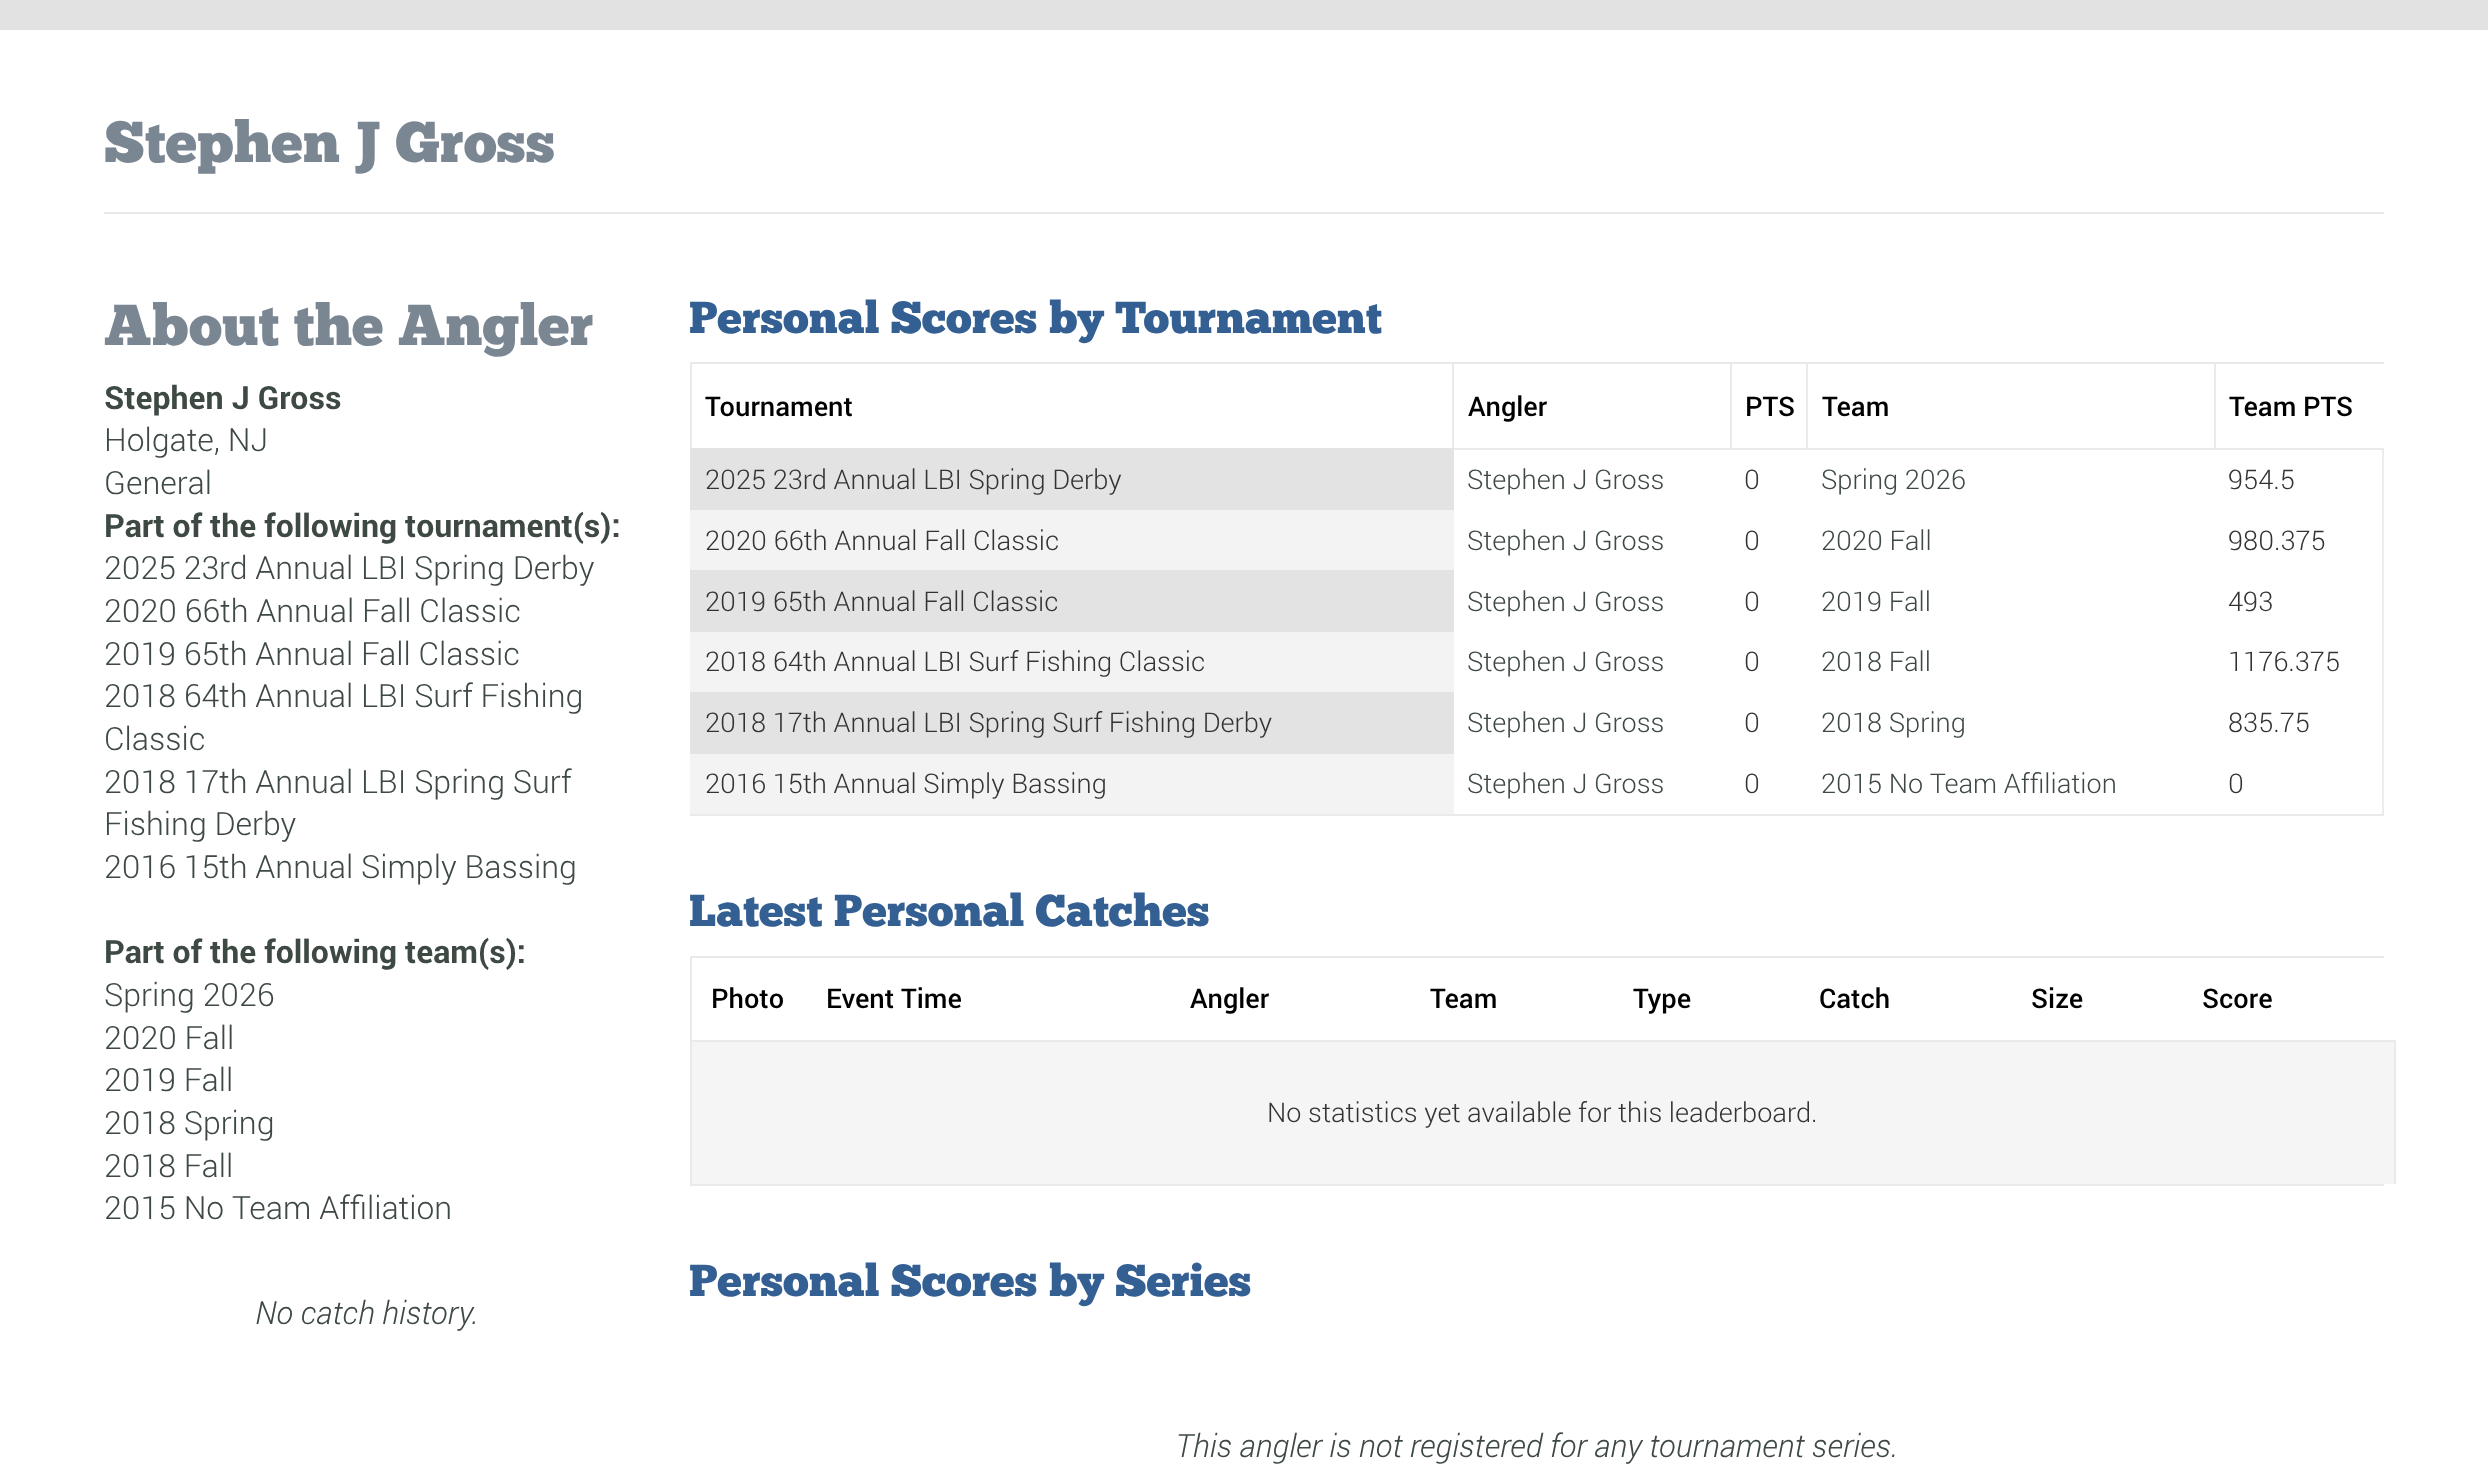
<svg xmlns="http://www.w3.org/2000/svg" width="2488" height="1480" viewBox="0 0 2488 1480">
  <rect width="100%" height="100%" fill="rgb(255,255,255)"/>
  <rect x="0" y="0" width="2488" height="30" fill="rgb(226,226,226)"/>
  <rect x="104" y="212" width="2280" height="2" fill="rgb(234,234,234)"/>
  <g font-family="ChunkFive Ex" font-size="57.5" fill="rgb(123,134,147)">
    <text x="104" y="162">Stephen J Gross</text>
    <text x="104" y="345">About the Angler</text>
  </g>
  <text x="104" y="409" font-family="roboto" font-size="32" font-weight="bold" fill="rgb(61,73,66)">Stephen J Gross</text>
  <g font-family="Roboto" font-size="32" font-weight="300" fill="rgb(61,73,66)">
    <text>
      <tspan x="104" y="451">Holgate, NJ</tspan>
      <tspan x="104" y="494">General</tspan>
    </text>
  </g>
  <text x="104" y="537" font-family="roboto" font-size="32" font-weight="bold" fill="rgb(61,73,66)">Part of the following tournament(s):</text>
  <g font-family="Roboto" font-size="32" font-weight="300" fill="rgb(61,73,66)">
    <text>
      <tspan x="104" y="579">2025 23rd Annual LBI Spring Derby</tspan>
      <tspan x="104" y="622">2020 66th Annual Fall Classic</tspan>
      <tspan x="104" y="665">2019 65th Annual Fall Classic</tspan>
      <tspan x="104" y="707">2018 64th Annual LBI Surf Fishing</tspan>
      <tspan x="104" y="750">Classic</tspan>
      <tspan x="104" y="793">2018 17th Annual LBI Spring Surf</tspan>
      <tspan x="104" y="835">Fishing Derby</tspan>
      <tspan x="104" y="878">2016 15th Annual Simply Bassing</tspan>
    </text>
  </g>
  <text x="104" y="963" font-family="roboto" font-size="32" font-weight="bold" fill="rgb(61,73,66)">Part of the following team(s):</text>
  <g font-family="Roboto" font-size="32" font-weight="300" fill="rgb(61,73,66)">
    <text>
      <tspan x="104" y="1006">Spring 2026</tspan>
      <tspan x="104" y="1049">2020 Fall</tspan>
      <tspan x="104" y="1091">2019 Fall</tspan>
      <tspan x="104" y="1134">2018 Spring</tspan>
      <tspan x="104" y="1177">2018 Fall</tspan>
      <tspan x="104" y="1219">2015 No Team Affiliation</tspan>
    </text>
  </g>
  <text x="255" y="1324" font-family="Roboto" font-size="32" font-weight="300" font-style="italic" fill="rgb(61,73,66)">No catch history.</text>
  <text x="689" y="333" font-family="ChunkFive Ex" font-size="44.75" fill="rgb(51,95,147)">Personal Scores by Tournament</text>
  <rect x="690" y="362" width="1694" height="2" fill="rgb(234,234,234)"/>
  <rect x="690" y="814" width="1694" height="2" fill="rgb(234,234,234)"/>
  <rect x="690" y="364" width="2" height="86" fill="rgb(234,234,234)"/>
  <text x="705" y="416" font-family="Roboto" font-size="27.2" font-weight="500" fill="rgb(0,0,0)">Tournament</text>
  <rect x="2382" y="448" width="2" height="366" fill="rgb(237,237,237)"/>
  <rect x="2214" y="448" width="170" height="2" fill="rgb(234,234,234)"/>
  <rect x="2214" y="364" width="2" height="86" fill="rgb(234,234,234)"/>
  <rect x="1806" y="448" width="410" height="2" fill="rgb(234,234,234)"/>
  <rect x="1806" y="364" width="2" height="86" fill="rgb(234,234,234)"/>
  <rect x="1730" y="448" width="78" height="2" fill="rgb(234,234,234)"/>
  <rect x="1730" y="364" width="2" height="86" fill="rgb(234,234,234)"/>
  <rect x="1452" y="448" width="280" height="2" fill="rgb(234,234,234)"/>
  <rect x="1452" y="364" width="2" height="86" fill="rgb(234,234,234)"/>
  <g font-family="Roboto" font-size="27.2" font-weight="500" fill="rgb(0,0,0)">
    <text x="1468" y="416">Angler</text>
    <text x="1745" y="416">PTS</text>
    <text x="1822" y="416">Team</text>
    <text x="2229" y="416">Team PTS</text>
  </g>
  <rect x="690" y="448" width="764" height="62" fill="rgb(227,227,227)"/>
  <text x="705" y="489" font-family="Roboto" font-size="27.2" font-weight="300" fill="rgb(51,51,51)">2025 23rd Annual LBI Spring Derby</text>
  <text x="1467" y="489" font-family="Roboto" font-size="27.2" font-weight="300" fill="rgb(61,73,66)">Stephen J Gross</text>
  <text x="1744" y="489" font-family="Roboto" font-size="27.2" font-weight="300" fill="rgb(51,51,51)">0</text>
  <text x="1821" y="489" font-family="Roboto" font-size="27.2" font-weight="300" fill="rgb(61,73,66)">Spring 2026</text>
  <text x="2228" y="489" font-family="Roboto" font-size="27.2" font-weight="300" fill="rgb(51,51,51)">954.5</text>
  <rect x="690" y="510" width="764" height="60" fill="rgb(243,243,243)"/>
  <text x="705" y="550" font-family="Roboto" font-size="27.2" font-weight="300" fill="rgb(51,51,51)">2020 66th Annual Fall Classic</text>
  <text x="1467" y="550" font-family="Roboto" font-size="27.2" font-weight="300" fill="rgb(61,73,66)">Stephen J Gross</text>
  <text x="1744" y="550" font-family="Roboto" font-size="27.2" font-weight="300" fill="rgb(51,51,51)">0</text>
  <text x="1821" y="550" font-family="Roboto" font-size="27.2" font-weight="300" fill="rgb(61,73,66)">2020 Fall</text>
  <text x="2228" y="550" font-family="Roboto" font-size="27.2" font-weight="300" fill="rgb(51,51,51)">980.375</text>
  <rect x="690" y="570" width="764" height="62" fill="rgb(227,227,227)"/>
  <text x="705" y="611" font-family="Roboto" font-size="27.2" font-weight="300" fill="rgb(51,51,51)">2019 65th Annual Fall Classic</text>
  <text x="1467" y="611" font-family="Roboto" font-size="27.2" font-weight="300" fill="rgb(61,73,66)">Stephen J Gross</text>
  <text x="1744" y="611" font-family="Roboto" font-size="27.2" font-weight="300" fill="rgb(51,51,51)">0</text>
  <text x="1821" y="611" font-family="Roboto" font-size="27.2" font-weight="300" fill="rgb(61,73,66)">2019 Fall</text>
  <text x="2228" y="611" font-family="Roboto" font-size="27.2" font-weight="300" fill="rgb(51,51,51)">493</text>
  <rect x="690" y="632" width="764" height="60" fill="rgb(243,243,243)"/>
  <text x="705" y="671" font-family="Roboto" font-size="27.2" font-weight="300" fill="rgb(51,51,51)">2018 64th Annual LBI Surf Fishing Classic</text>
  <text x="1467" y="671" font-family="Roboto" font-size="27.2" font-weight="300" fill="rgb(61,73,66)">Stephen J Gross</text>
  <text x="1744" y="671" font-family="Roboto" font-size="27.2" font-weight="300" fill="rgb(51,51,51)">0</text>
  <text x="1821" y="671" font-family="Roboto" font-size="27.2" font-weight="300" fill="rgb(61,73,66)">2018 Fall</text>
  <text x="2228" y="671" font-family="Roboto" font-size="27.2" font-weight="300" fill="rgb(51,51,51)">1176.375</text>
  <rect x="690" y="692" width="764" height="62" fill="rgb(227,227,227)"/>
  <text x="705" y="732" font-family="Roboto" font-size="27.2" font-weight="300" fill="rgb(51,51,51)">2018 17th Annual LBI Spring Surf Fishing Derby</text>
  <text x="1467" y="732" font-family="Roboto" font-size="27.2" font-weight="300" fill="rgb(61,73,66)">Stephen J Gross</text>
  <text x="1744" y="732" font-family="Roboto" font-size="27.2" font-weight="300" fill="rgb(51,51,51)">0</text>
  <text x="1821" y="732" font-family="Roboto" font-size="27.2" font-weight="300" fill="rgb(61,73,66)">2018 Spring</text>
  <text x="2228" y="732" font-family="Roboto" font-size="27.2" font-weight="300" fill="rgb(51,51,51)">835.75</text>
  <rect x="690" y="754" width="764" height="60" fill="rgb(243,243,243)"/>
  <text x="705" y="793" font-family="Roboto" font-size="27.2" font-weight="300" fill="rgb(51,51,51)">2016 15th Annual Simply Bassing</text>
  <text x="1467" y="793" font-family="Roboto" font-size="27.2" font-weight="300" fill="rgb(61,73,66)">Stephen J Gross</text>
  <text x="1744" y="793" font-family="Roboto" font-size="27.2" font-weight="300" fill="rgb(51,51,51)">0</text>
  <text x="1821" y="793" font-family="Roboto" font-size="27.2" font-weight="300" fill="rgb(61,73,66)">2015 No Team Affiliation</text>
  <text x="2228" y="793" font-family="Roboto" font-size="27.2" font-weight="300" fill="rgb(51,51,51)">0</text>
  <text x="689" y="926" font-family="ChunkFive Ex" font-size="44.75" fill="rgb(51,95,147)">Latest Personal Catches</text>
  <rect x="690" y="956" width="1694" height="2" fill="rgb(234,234,234)"/>
  <rect x="690" y="1184" width="1694" height="2" fill="rgb(234,234,234)"/>
  <rect x="690" y="1040" width="1706" height="2" fill="rgb(234,234,234)"/>
  <rect x="690" y="958" width="2" height="226" fill="rgb(234,234,234)"/>
  <g font-family="Roboto" font-size="27.2" font-weight="500" fill="rgb(0,0,0)">
    <text x="711" y="1008">Photo</text>
    <text x="826" y="1008">Event Time</text>
    <text x="1190" y="1008">Angler</text>
    <text x="1430" y="1008">Team</text>
    <text x="1633" y="1008">Type</text>
    <text x="1819" y="1008">Catch</text>
    <text x="2031" y="1008">Size</text>
    <text x="2202" y="1008">Score</text>
  </g>
  <rect x="692" y="1042" width="1702" height="142" fill="rgb(245,245,245)"/>
  <rect x="2394" y="1042" width="2" height="142" fill="rgb(234,234,234)"/>
  <text x="1267" y="1122" font-family="Roboto" font-size="27.2" font-weight="300" fill="rgb(51,51,51)">No statistics yet available for this leaderboard.</text>
  <text x="689" y="1296" font-family="ChunkFive Ex" font-size="44.75" fill="rgb(51,95,147)">Personal Scores by Series</text>
  <text x="1175" y="1457" font-family="Roboto" font-size="32" font-weight="300" font-style="italic" fill="rgb(61,73,66)">This angler is not registered for any tournament series.</text>
</svg>
